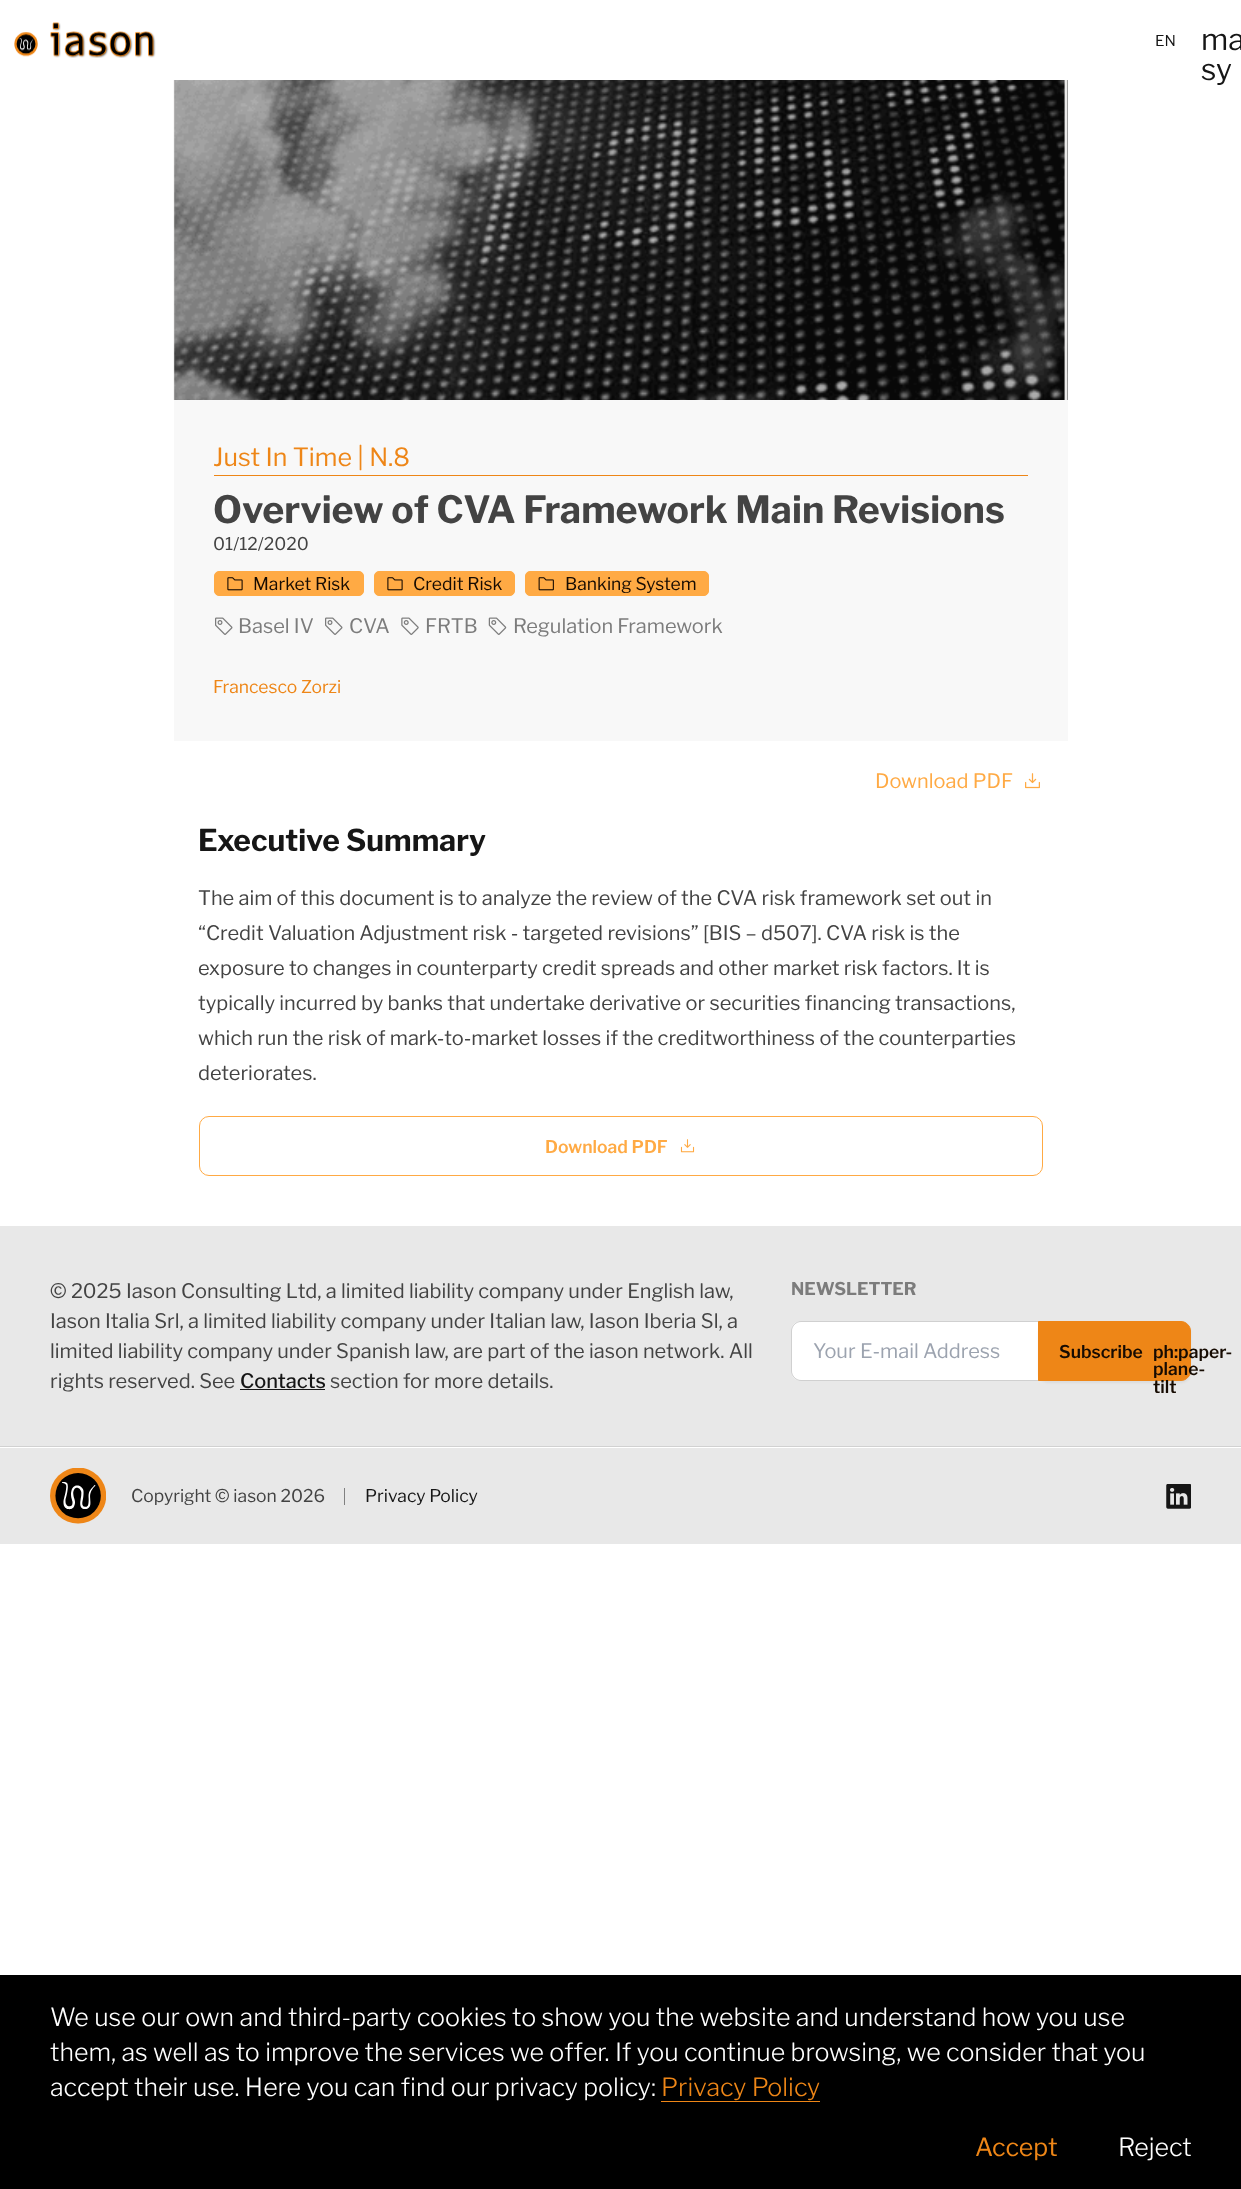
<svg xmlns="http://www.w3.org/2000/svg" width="1241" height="2189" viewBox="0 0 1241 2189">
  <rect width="100%" height="100%" fill="rgb(255,255,255)"/>
  <image x="14" y="22" width="142" height="36" href="pic1.png"/>
  <text x="1155" y="46" font-family="Libre Franklin" font-size="15" fill="rgb(22,22,22)">EN</text>
  <g font-family="Libre Franklin" font-size="30" fill="rgb(22,22,22)">
    <text>
      <tspan x="1201" y="50">ma</tspan>
      <tspan x="1201" y="80">sy</tspan>
    </text>
  </g>
  <rect x="1067" y="80" width="1" height="320" fill="rgb(102,102,102)"/>
  <image x="173" y="80" width="895" height="320" href="pic2.png"/>
  <rect x="174" y="400" width="894" height="341" fill="rgb(248,248,248)"/>
  <rect x="214" y="475" width="814" height="1" fill="rgb(238,134,23)"/>
  <text x="213" y="466" font-family="Libre Franklin" font-size="25" fill="rgb(238,134,23)">Just In Time | N.8</text>
  <text x="213" y="523" font-family="Libre Franklin" font-size="37.5" font-weight="bold" fill="rgb(67,67,67)">Overview of CVA Framework Main Revisions</text>
  <text x="213" y="550" font-family="Libre Franklin" font-size="17.5" fill="rgb(67,67,67)">01/12/2020</text>
  <rect x="214.5" y="571.5" width="149" height="24" rx="4.5" fill="rgb(255,170,68)" stroke="rgb(255,170,68)"/>
  <image x="227" y="577" width="16" height="14" href="pic3.png"/>
  <text x="253" y="590" font-family="Libre Franklin" font-size="17.5" fill="rgb(22,11,2)">Market Risk</text>
  <rect x="374.5" y="571.5" width="140" height="24" rx="4.5" fill="rgb(255,170,68)" stroke="rgb(255,170,68)"/>
  <image x="387" y="577" width="16" height="14" href="pic3.png"/>
  <text x="413" y="590" font-family="Libre Franklin" font-size="17.5" fill="rgb(22,11,2)">Credit Risk</text>
  <rect x="525.5" y="571.5" width="183" height="24" rx="4.5" fill="rgb(255,170,68)" stroke="rgb(255,170,68)"/>
  <image x="538" y="577" width="16" height="14" href="pic4.png"/>
  <text x="565" y="590" font-family="Libre Franklin" font-size="17.5" fill="rgb(22,11,2)">Banking System</text>
  <image x="215" y="617" width="18" height="18" href="pic5.png"/>
  <text x="238" y="633" font-family="Libre Franklin" font-size="20" fill="rgb(124,124,124)">Basel IV</text>
  <image x="325" y="617" width="18" height="18" href="pic5.png"/>
  <text x="349" y="633" font-family="Libre Franklin" font-size="20" fill="rgb(124,124,124)">CVA</text>
  <image x="401" y="617" width="18" height="18" href="pic6.png"/>
  <text x="425" y="633" font-family="Libre Franklin" font-size="20" fill="rgb(124,124,124)">FRTB</text>
  <image x="488" y="617" width="19" height="18" href="pic7.png"/>
  <text x="513" y="633" font-family="Libre Franklin" font-size="20" fill="rgb(124,124,124)">Regulation Framework</text>
  <text x="213" y="693" font-family="Libre Franklin" font-size="17.5" fill="rgb(238,134,23)">Francesco Zorzi</text>
  <text x="875" y="788" font-family="Libre Franklin" font-size="20" fill="rgb(255,170,68)">Download PDF</text>
  <image x="1025" y="773" width="15" height="16" href="pic8.png"/>
  <text x="198" y="851" font-family="Libre Franklin" font-size="30" font-weight="bold" fill="rgb(22,22,22)">Executive Summary</text>
  <g font-family="Libre Franklin" font-size="20" fill="rgb(67,67,67)">
    <text>
      <tspan x="198" y="905">The aim of this document is to analyze the review of the CVA risk framework set out in</tspan>
      <tspan x="198" y="940">“Credit Valuation Adjustment risk - targeted revisions” [BIS – d507]. CVA risk is the</tspan>
      <tspan x="198" y="975">exposure to changes in counterparty credit spreads and other market risk factors. It is</tspan>
      <tspan x="198" y="1010">typically incurred by banks that undertake derivative or securities financing transactions,</tspan>
      <tspan x="198" y="1045">which run the risk of mark-to-market losses if the creditworthiness of the counterparties</tspan>
      <tspan x="198" y="1080">deteriorates.</tspan>
    </text>
  </g>
  <rect x="199.5" y="1116.5" width="843" height="59" rx="9.5" fill="none" stroke="rgb(255,170,68)"/>
  <text x="545" y="1153" font-family="Libre Franklin" font-size="17.5" font-weight="600" fill="rgb(255,170,68)">Download PDF</text>
  <image x="680" y="1139" width="15" height="14" href="pic9.png"/>
  <rect x="0" y="1226" width="1241" height="220" fill="rgb(232,232,232)"/>
  <g font-family="Libre Franklin" font-size="20" fill="rgb(67,67,67)">
    <text>
      <tspan x="50" y="1298">© 2025 Iason Consulting Ltd, a limited liability company under English law,</tspan>
      <tspan x="50" y="1328">Iason Italia Srl, a limited liability company under Italian law, Iason Iberia Sl, a</tspan>
      <tspan x="50" y="1358">limited liability company under Spanish law, are part of the iason network. All</tspan>
      <tspan x="50" y="1388">rights reserved. See</tspan>
    </text>
  </g>
  <text x="240" y="1388" font-family="Libre Franklin" font-size="20" font-weight="500" fill="rgb(22,22,22)">Contacts</text>
  <rect x="240" y="1389" width="85" height="1" fill="rgb(22,22,22)"/>
  <text x="330" y="1388" font-family="Libre Franklin" font-size="20" fill="rgb(67,67,67)">section for more details.</text>
  <text x="791" y="1295" font-family="Libre Franklin" font-size="17.5" font-weight="bold" fill="rgb(124,124,124)">NEWSLETTER</text>
  <path d="M801 1321H1039V1381H801C795.5 1381 791 1376.5 791 1371V1331C791 1325.5 795.5 1321 801 1321Z" fill="rgb(255,255,255)"/>
  <path d="M801 1321.5H1038.5V1380.5H801C796 1380.5 791.5 1376 791.5 1371V1331C791.5 1326 796 1321.5 801 1321.5Z" fill="none" stroke="rgba(22,22,22,0.2)"/>
  <text x="813" y="1358" font-family="Libre Franklin" font-size="20" fill="rgb(156,163,175)">Your E-mail Address</text>
  <rect x="1038" y="1323" width="153" height="60" rx="10" fill="rgba(0,0,0,0.05)" filter="blur(1px)"/>
  <path d="M1038.5 1321.5H1181C1186 1321.5 1190.5 1326 1190.5 1331V1371C1190.5 1376 1186 1380.5 1181 1380.5H1038.5Z" fill="rgb(238,134,23)" stroke="rgb(238,134,23)"/>
  <g font-family="Libre Franklin" font-size="17.5" font-weight="600" fill="rgb(22,11,2)">
    <text x="1059" y="1358">Subscribe</text>
    <text>
      <tspan x="1153" y="1358">ph:paper-</tspan>
      <tspan x="1153" y="1375">plane-</tspan>
      <tspan x="1153" y="1393">tilt</tspan>
    </text>
  </g>
  <rect x="0" y="1448" width="1241" height="96" fill="rgb(232,232,232)"/>
  <rect x="0" y="1446" width="1241" height="1" fill="rgb(209,209,209)"/>
  <image x="50" y="1468" width="56" height="56" href="pic10.png"/>
  <text x="131" y="1502" font-family="Libre Franklin" font-size="17.5" fill="rgb(67,67,67)">Copyright © iason 2026</text>
  <rect x="344" y="1488" width="1" height="17" fill="rgb(128,128,128)"/>
  <text x="365" y="1502" font-family="Libre Franklin" font-size="17.5" fill="rgb(22,22,22)">Privacy Policy</text>
  <image x="1166" y="1484" width="25" height="25" href="pic11.png"/>
  <rect x="0" y="1975" width="1241" height="214" fill="rgb(0,0,0)"/>
  <g font-family="Libre Franklin" font-size="25" font-weight="300" fill="rgb(255,255,255)">
    <text>
      <tspan x="50" y="2026">We use our own and third-party cookies to show you the website and understand how you use</tspan>
      <tspan x="50" y="2061">them, as well as to improve the services we offer. If you continue browsing, we consider that you</tspan>
      <tspan x="50" y="2096">accept their use. Here you can find our privacy policy:</tspan>
    </text>
  </g>
  <text x="661" y="2096" font-family="Libre Franklin" font-size="25" font-weight="300" fill="rgb(238,134,23)">Privacy Policy</text>
  <rect x="661" y="2101" width="159" height="1" fill="rgb(238,134,23)"/>
  <text x="975" y="2156" font-family="Libre Franklin" font-size="25" fill="rgb(238,134,23)">Accept</text>
  <text x="1118" y="2156" font-family="Libre Franklin" font-size="25" font-weight="300" fill="rgb(255,255,255)">Reject</text>
</svg>
